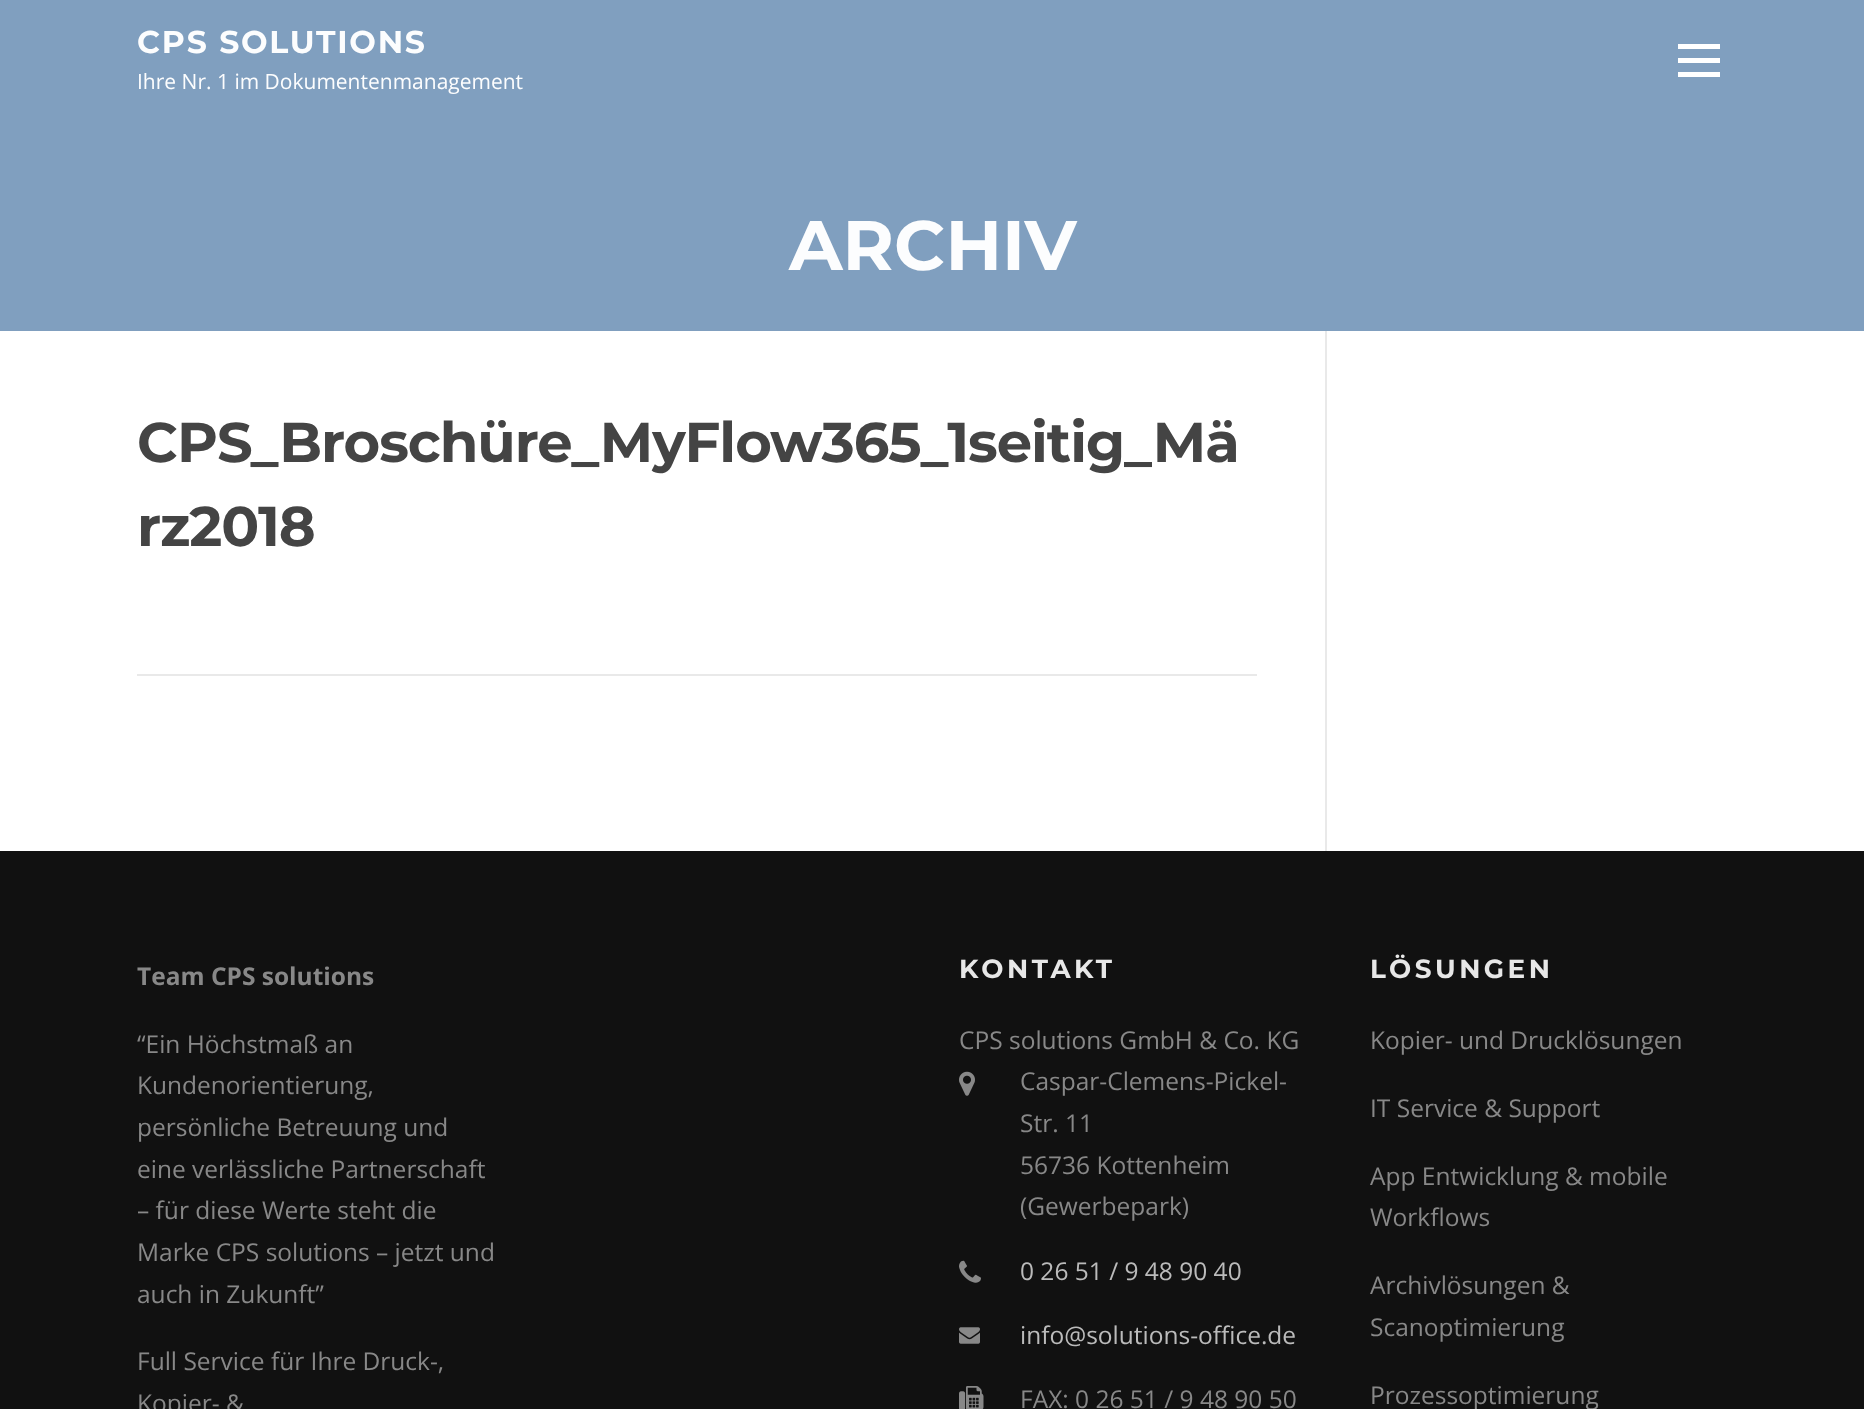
<svg xmlns="http://www.w3.org/2000/svg" width="1864" height="1409" viewBox="0 0 1864 1409">
  <rect width="100%" height="100%" fill="rgb(255,255,255)"/>
  <rect x="0" y="0" width="1864" height="331" fill="rgb(128,159,191)"/>
  <text x="137" y="53" font-family="Montserrat" font-size="31.5" font-weight="100" letter-spacing="1.75" fill="rgb(252,253,254)">CPS SOLUTIONS</text>
  <text x="137" y="89" font-family="Open Sans" font-size="21" fill="rgb(252,253,254)">Ihre Nr. 1 im Dokumentenmanagement</text>
  <rect x="1678" y="58" width="42" height="5" fill="rgb(255,255,255)"/>
  <rect x="1678" y="44" width="42" height="5" fill="rgb(255,255,255)"/>
  <rect x="1678" y="72" width="42" height="5" fill="rgb(255,255,255)"/>
  <text x="789" y="270" font-family="Montserrat" font-size="70" font-weight="100" fill="rgb(252,253,254)">ARCHIV</text>
  <rect x="1325" y="331" width="2" height="520" fill="rgb(233,233,233)"/>
  <g font-family="Montserrat" font-size="56" font-weight="100" letter-spacing="-1.05" fill="rgb(68,68,68)">
    <text>
      <tspan x="137" y="462">CPS_Broschüre_MyFlow365_1seitig_Mä</tspan>
      <tspan x="137" y="546">rz2018</tspan>
    </text>
  </g>
  <rect x="137" y="674" width="1120" height="2" fill="rgb(233,233,233)"/>
  <rect x="0" y="851" width="1864" height="558" fill="rgb(17,17,17)"/>
  <text x="137" y="985" font-family="Open Sans" font-size="24.5" font-weight="bold" fill="rgb(136,136,136)">Team CPS solutions</text>
  <g font-family="Open Sans" font-size="24.5" fill="rgb(136,136,136)">
    <text>
      <tspan x="137" y="1053">“Ein Höchstmaß an</tspan>
      <tspan x="137" y="1094">Kundenorientierung,</tspan>
      <tspan x="137" y="1136">persönliche Betreuung und</tspan>
      <tspan x="137" y="1178">eine verlässliche Partnerschaft</tspan>
      <tspan x="137" y="1219">– für diese Werte steht die</tspan>
      <tspan x="137" y="1261">Marke CPS solutions – jetzt und</tspan>
      <tspan x="137" y="1303">auch in Zukunft”</tspan>
    </text>
    <text>
      <tspan x="137" y="1370">Full Service für Ihre Druck-,</tspan>
      <tspan x="137" y="1412">Kopier- &amp;</tspan>
    </text>
  </g>
  <text x="959" y="978" font-family="Montserrat" font-size="26.25" font-weight="100" letter-spacing="3.5" fill="rgb(231,231,231)">KONTAKT</text>
  <text x="959" y="1049" font-family="Open Sans" font-size="24.5" fill="rgb(136,136,136)">CPS solutions GmbH &amp; Co. KG</text>
  <image x="959" y="1071" width="16" height="25" href="pic1.png"/>
  <g font-family="Open Sans" font-size="24.5" fill="rgb(136,136,136)">
    <text>
      <tspan x="1020" y="1090">Caspar-Clemens-Pickel-</tspan>
      <tspan x="1020" y="1132">Str. 11</tspan>
      <tspan x="1020" y="1174">56736 Kottenheim</tspan>
      <tspan x="1020" y="1215">(Gewerbepark)</tspan>
    </text>
  </g>
  <image x="959" y="1260" width="22" height="23" href="pic2.png"/>
  <text x="1020" y="1280" font-family="Open Sans" font-size="24.5" fill="rgb(187,187,187)">0 26 51 / 9 48 90 40</text>
  <image x="959" y="1327" width="21" height="17" href="pic3.png"/>
  <text x="1020" y="1344" font-family="Open Sans" font-size="24.5" fill="rgb(187,187,187)">info@solutions-office.de</text>
  <image x="959" y="1386" width="25" height="23" href="pic4.png"/>
  <text x="1020" y="1408" font-family="Open Sans" font-size="24.5" fill="rgb(136,136,136)">FAX: 0 26 51 / 9 48 90 50</text>
  <text x="1370" y="978" font-family="Montserrat" font-size="26.25" font-weight="100" letter-spacing="3.5" fill="rgb(231,231,231)">LÖSUNGEN</text>
  <g font-family="Open Sans" font-size="24.5" fill="rgb(136,136,136)">
    <text x="1370" y="1049">Kopier- und Drucklösungen</text>
    <text x="1370" y="1117">IT Service &amp; Support</text>
    <text>
      <tspan x="1370" y="1185">App Entwicklung &amp; mobile</tspan>
      <tspan x="1370" y="1226">Workflows</tspan>
    </text>
    <text>
      <tspan x="1370" y="1294">Archivlösungen &amp;</tspan>
      <tspan x="1370" y="1336">Scanoptimierung</tspan>
    </text>
    <text x="1370" y="1404">Prozessoptimierung</text>
  </g>
</svg>
